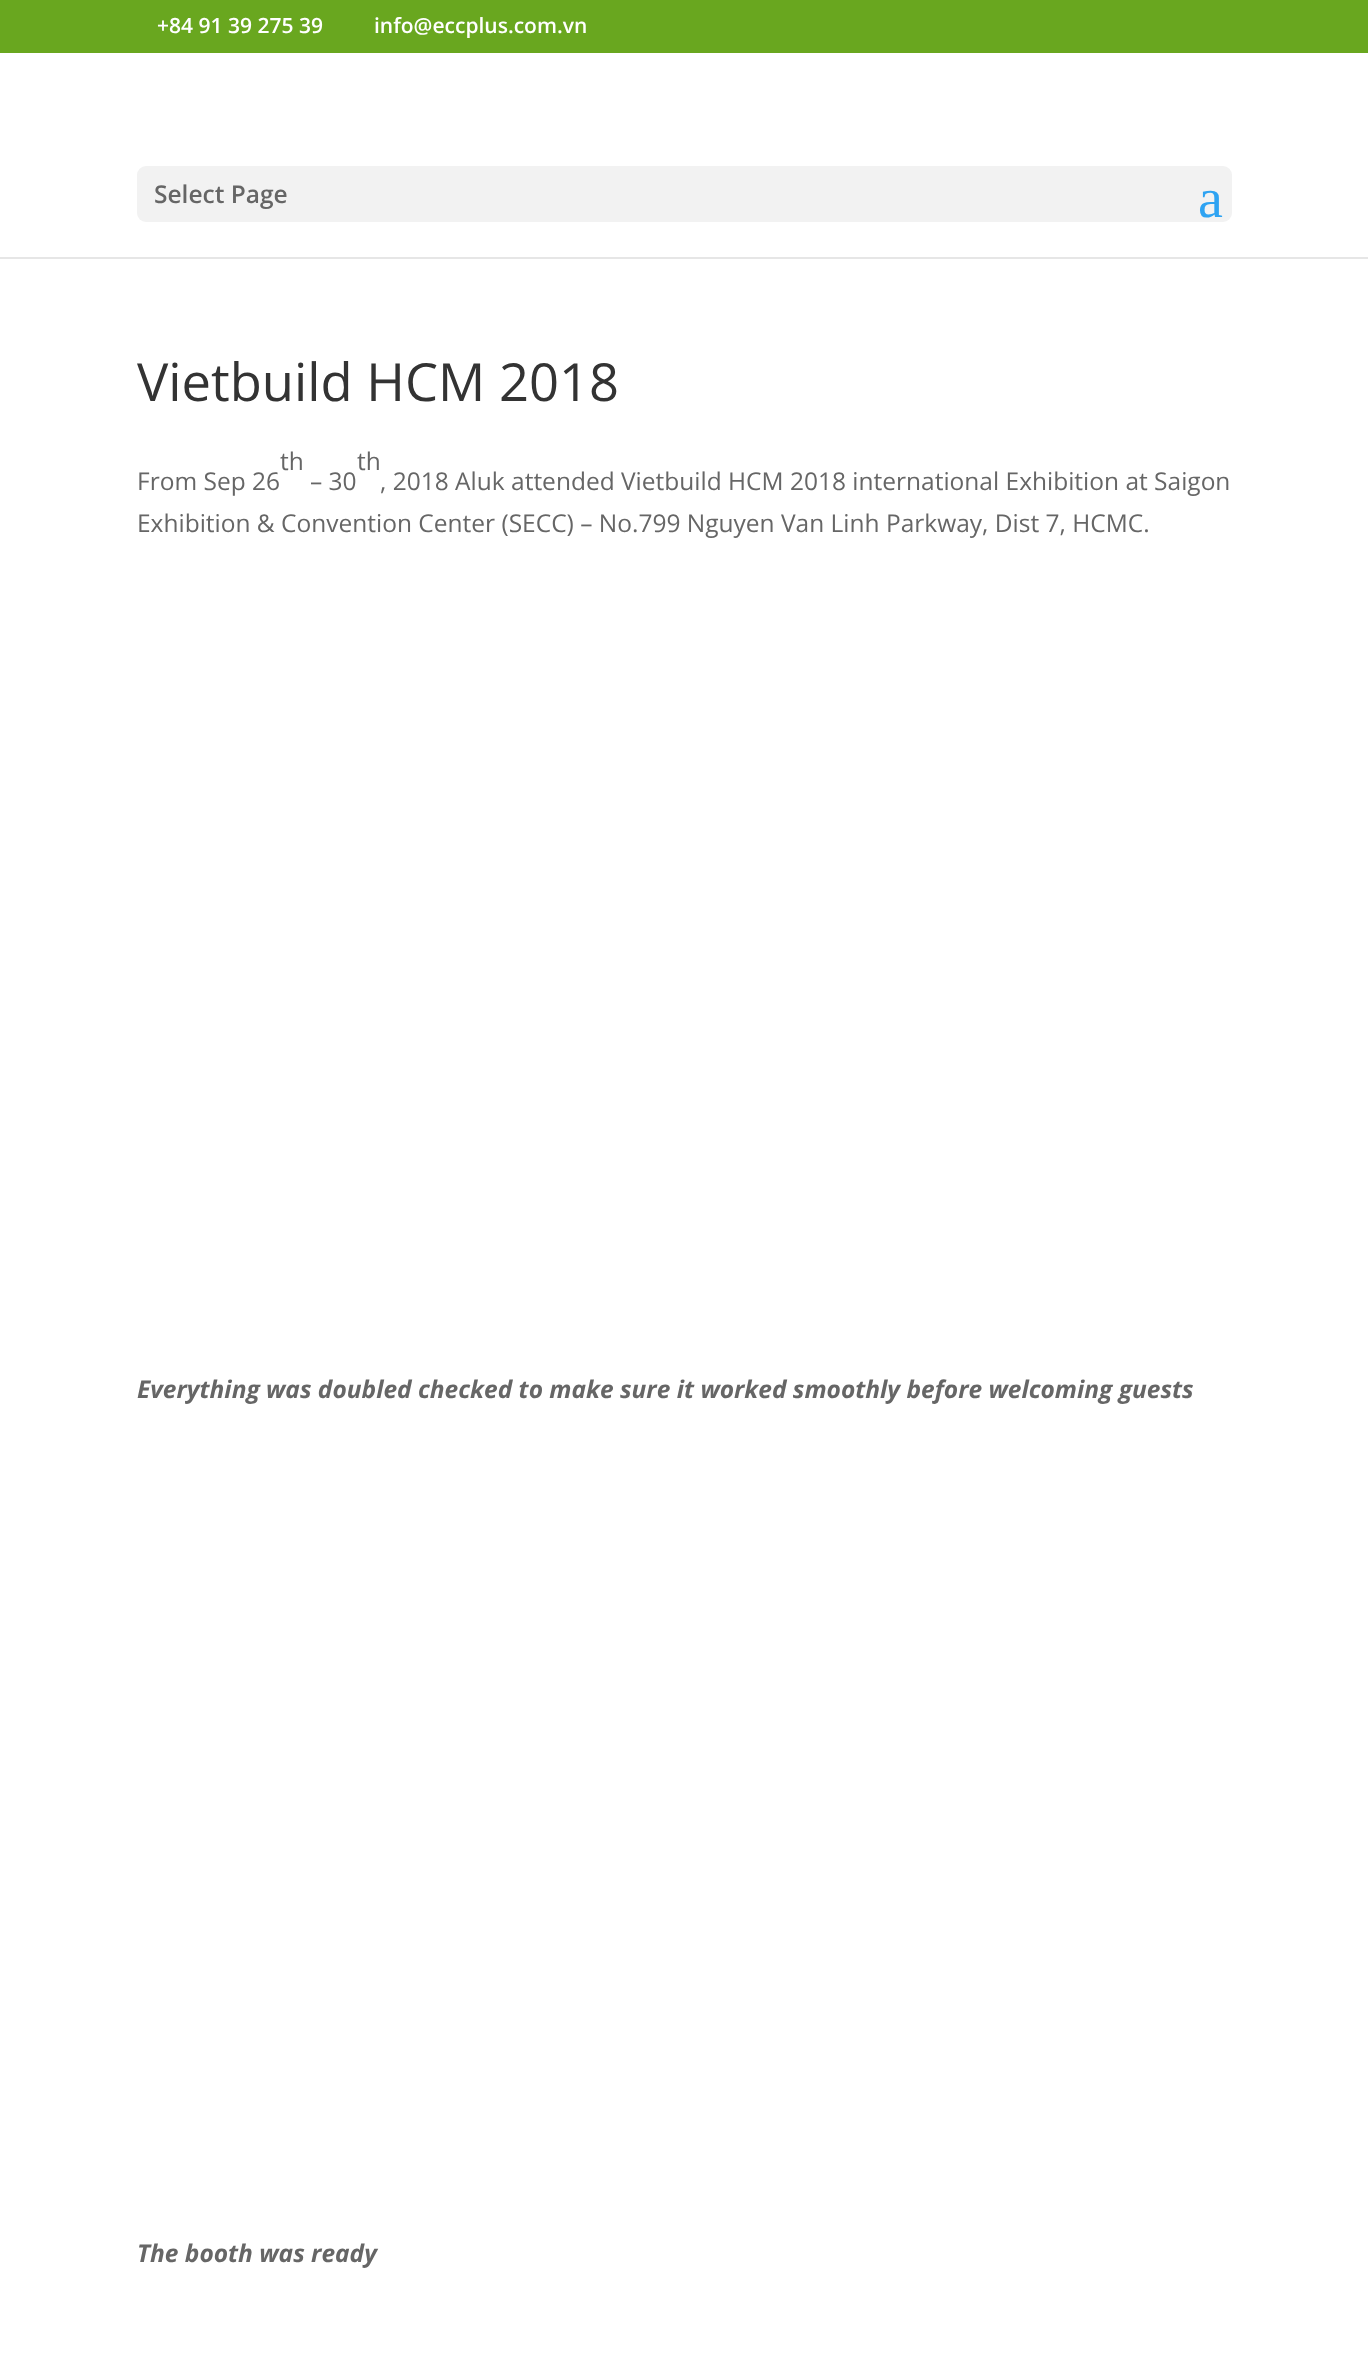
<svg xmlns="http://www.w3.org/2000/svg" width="1368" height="2376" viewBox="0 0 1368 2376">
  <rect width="100%" height="100%" fill="rgb(255,255,255)"/>
  <rect x="0" y="0" width="1368" height="53" fill="rgb(105,167,31)"/>
  <g font-family="Open Sans" font-size="21" font-weight="600" fill="rgb(255,255,255)">
    <text x="157" y="33">+84 91 39 275 39</text>
    <text x="374" y="33">info@eccplus.com.vn</text>
  </g>
  <path d="M0 257V259H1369V54H1368V257Z" fill="rgb(230,230,230)"/>
  <rect x="137" y="166" width="1095" height="56" rx="9" fill="rgb(242,242,242)"/>
  <text x="154" y="203" font-family="Open Sans" font-size="24.5" font-weight="600" fill="rgb(102,102,102)">Select Page</text>
  <text x="1198" y="217" font-family="Liberation Serif" font-size="56" fill="rgb(46,163,242)">a</text>
  <text x="137" y="401" font-family="Open Sans" font-size="52.5" fill="rgb(51,51,51)">Vietbuild HCM 2018</text>
  <g font-family="Open Sans" font-size="24.5" fill="rgb(102,102,102)">
    <text x="280" y="470">th</text>
    <text x="357" y="470">th</text>
    <text x="137" y="490">From Sep 26</text>
    <text x="310" y="490">– 30</text>
    <text x="380" y="490">, 2018 Aluk attended Vietbuild HCM 2018 international Exhibition at Saigon</text>
    <text x="137" y="532">Exhibition &amp; Convention Center (SECC) – No.799 Nguyen Van Linh Parkway, Dist 7, HCMC.</text>
  </g>
  <g font-family="Open Sans" font-size="24.5" font-weight="bold" font-style="italic" fill="rgb(102,102,102)">
    <text x="137" y="1398">Everything was doubled checked to make sure it worked smoothly before welcoming guests</text>
    <text x="137" y="2262">The booth was ready</text>
  </g>
</svg>
